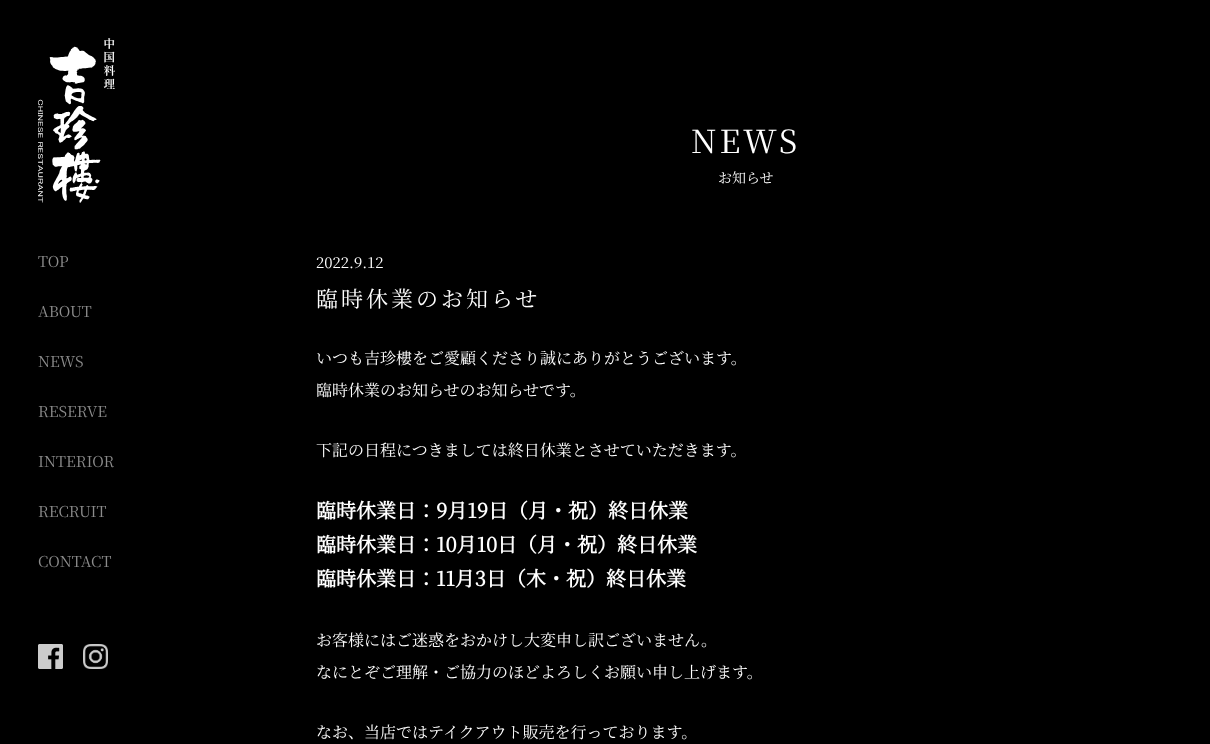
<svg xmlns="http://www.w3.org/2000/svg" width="1210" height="744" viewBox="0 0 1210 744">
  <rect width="100%" height="100%" fill="rgb(0,0,0)"/>
  <image x="38" y="38" width="77" height="165" href="pic1.png"/>
  <g font-family="Noto Serif JP" font-size="15" font-weight="200" fill="rgb(140,140,140)">
    <text x="38" y="267">TOP</text>
    <text x="38" y="317">ABOUT</text>
    <text x="38" y="367">NEWS</text>
    <text x="38" y="417">RESERVE</text>
    <text x="38" y="467">INTERIOR</text>
    <text x="38" y="517">RECRUIT</text>
    <text x="38" y="567">CONTACT</text>
  </g>
  <image x="38" y="644" width="25" height="25" href="pic2.png"/>
  <image x="83" y="644" width="25" height="25" href="pic3.png"/>
  <text x="691" y="153" font-family="Noto Serif JP" font-size="32" font-weight="200" letter-spacing="3" fill="rgb(255,255,255)">NEWS</text>
  <text x="718" y="183" font-family="Noto Serif JP" font-size="14" font-weight="200" fill="rgb(255,255,255)">お知らせ</text>
  <text x="316" y="268" font-family="Noto Serif JP" font-size="15" font-weight="200" fill="rgb(255,255,255)">2022.9.12</text>
  <text x="316" y="307" font-family="Noto Serif JP" font-size="22" font-weight="200" letter-spacing="3" fill="rgb(255,255,255)">臨時休業のお知らせ</text>
  <g font-family="Noto Serif JP" font-size="16" font-weight="200" fill="rgb(255,255,255)">
    <text x="316" y="364">いつも吉珍樓をご愛顧くださり誠にありがとうございます。</text>
    <text x="316" y="396">臨時休業のお知らせのお知らせです。</text>
    <text x="316" y="456">下記の日程につきましては終日休業とさせていただきます。</text>
  </g>
  <g font-family="Noto Serif JP" font-size="20" font-weight="bold" fill="rgb(255,255,255)">
    <text>
      <tspan x="316" y="518">臨時休業日：9月19日（月・祝）終日休業</tspan>
      <tspan x="316" y="552">臨時休業日：10月10日（月・祝）終日休業</tspan>
      <tspan x="316" y="586">臨時休業日：11月3日（木・祝）終日休業</tspan>
    </text>
  </g>
  <g font-family="Noto Serif JP" font-size="16" font-weight="200" fill="rgb(255,255,255)">
    <text x="316" y="646">お客様にはご迷惑をおかけし大変申し訳ございません。</text>
    <text x="316" y="678">なにとぞご理解・ご協力のほどよろしくお願い申し上げます。</text>
    <text x="316" y="738">なお、当店ではテイクアウト販売を行っております。</text>
  </g>
</svg>
